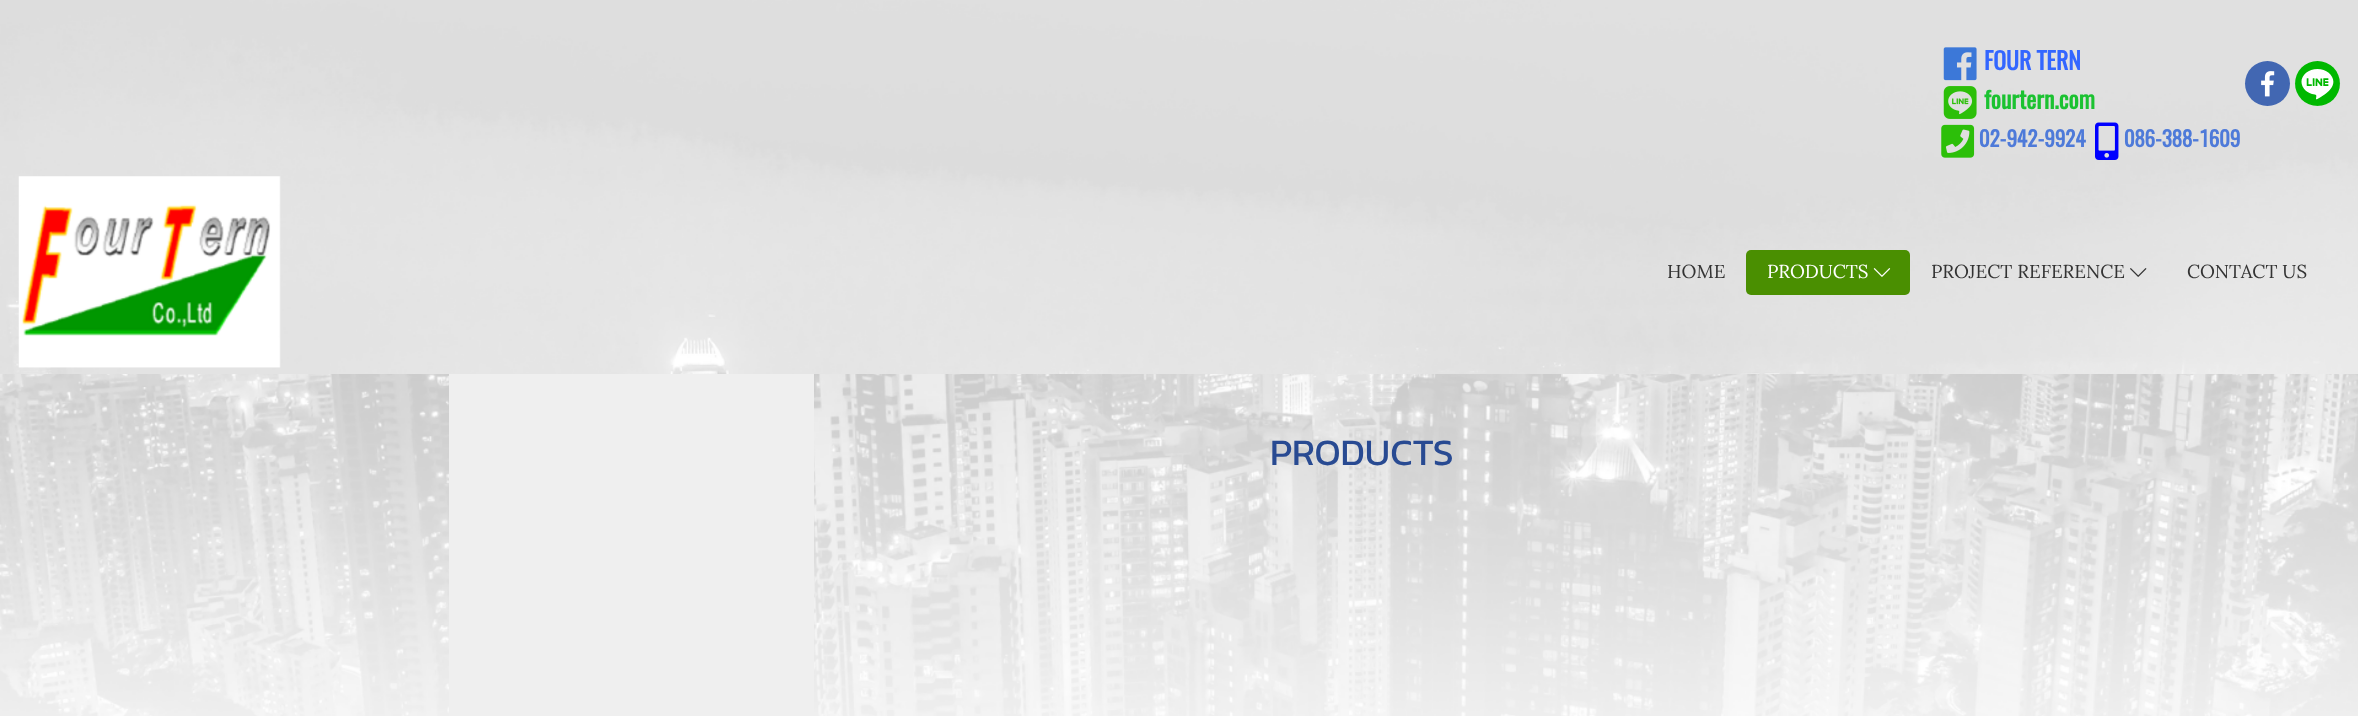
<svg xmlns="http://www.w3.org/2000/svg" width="2358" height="716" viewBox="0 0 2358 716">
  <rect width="100%" height="100%" fill="rgb(255,255,255)"/>
  <image x="0" y="374" width="2358" height="342" href="pic1.png"/>
  <image x="0" y="0" width="2358" height="374" href="pic2.png"/>
  <image x="1943" y="47" width="34" height="34" href="pic3.png"/>
  <text x="1984" y="70" font-family="Oswald" font-size="23.75" font-weight="bold" fill="rgb(51,102,255)">FOUR TERN</text>
  <image x="1943" y="86" width="34" height="33" href="pic4.png"/>
  <text x="1984" y="109" font-family="Oswald" font-size="23.75" font-weight="bold" fill="rgb(27,194,49)">fourtern.com</text>
  <image x="1941" y="124" width="34" height="34" href="pic5.png"/>
  <text x="1979" y="147" font-family="Oswald" font-size="21.25" font-weight="bold" fill="rgb(78,122,217)">02-942-9924</text>
  <image x="2095" y="122" width="24" height="38" href="pic6.png"/>
  <text x="2124" y="147" font-family="Oswald" font-size="21.25" font-weight="bold" fill="rgb(78,122,217)">086-388-1609</text>
  <circle cx="2267.5" cy="83.5" r="22.5" fill="rgb(66,103,178)"/>
  <image x="2261" y="71" width="14" height="26" href="pic7.png"/>
  <circle cx="2317.5" cy="83.5" r="22.5" fill="rgb(0,184,0)"/>
  <image x="2295" y="69" width="45" height="37" href="pic8.png"/>
  <image x="18" y="176" width="263" height="192" href="pic9.png"/>
  <text x="1667" y="278" font-family="Lora" font-size="18.75" fill="rgb(51,51,51)">HOME</text>
  <rect x="1746" y="250" width="164" height="45" rx="5" fill="rgb(74,143,1)"/>
  <text x="1767" y="278" font-family="Lora" font-size="18.75" fill="rgb(255,255,255)">PRODUCTS</text>
  <image x="1873" y="268" width="18" height="9" href="pic10.png"/>
  <text x="1931" y="278" font-family="Lora" font-size="18.75" fill="rgb(51,51,51)">PROJECT REFERENCE</text>
  <image x="2130" y="268" width="17" height="9" href="pic11.png"/>
  <text x="2187" y="278" font-family="Lora" font-size="18.75" fill="rgb(51,51,51)">CONTACT US</text>
  <rect x="449" y="374" width="365" height="342" fill="rgb(239,239,239)"/>
  <text x="1270" y="465" font-family="Kanit" font-size="37.5" fill="rgb(40,74,146)">PRODUCTS</text>
</svg>
